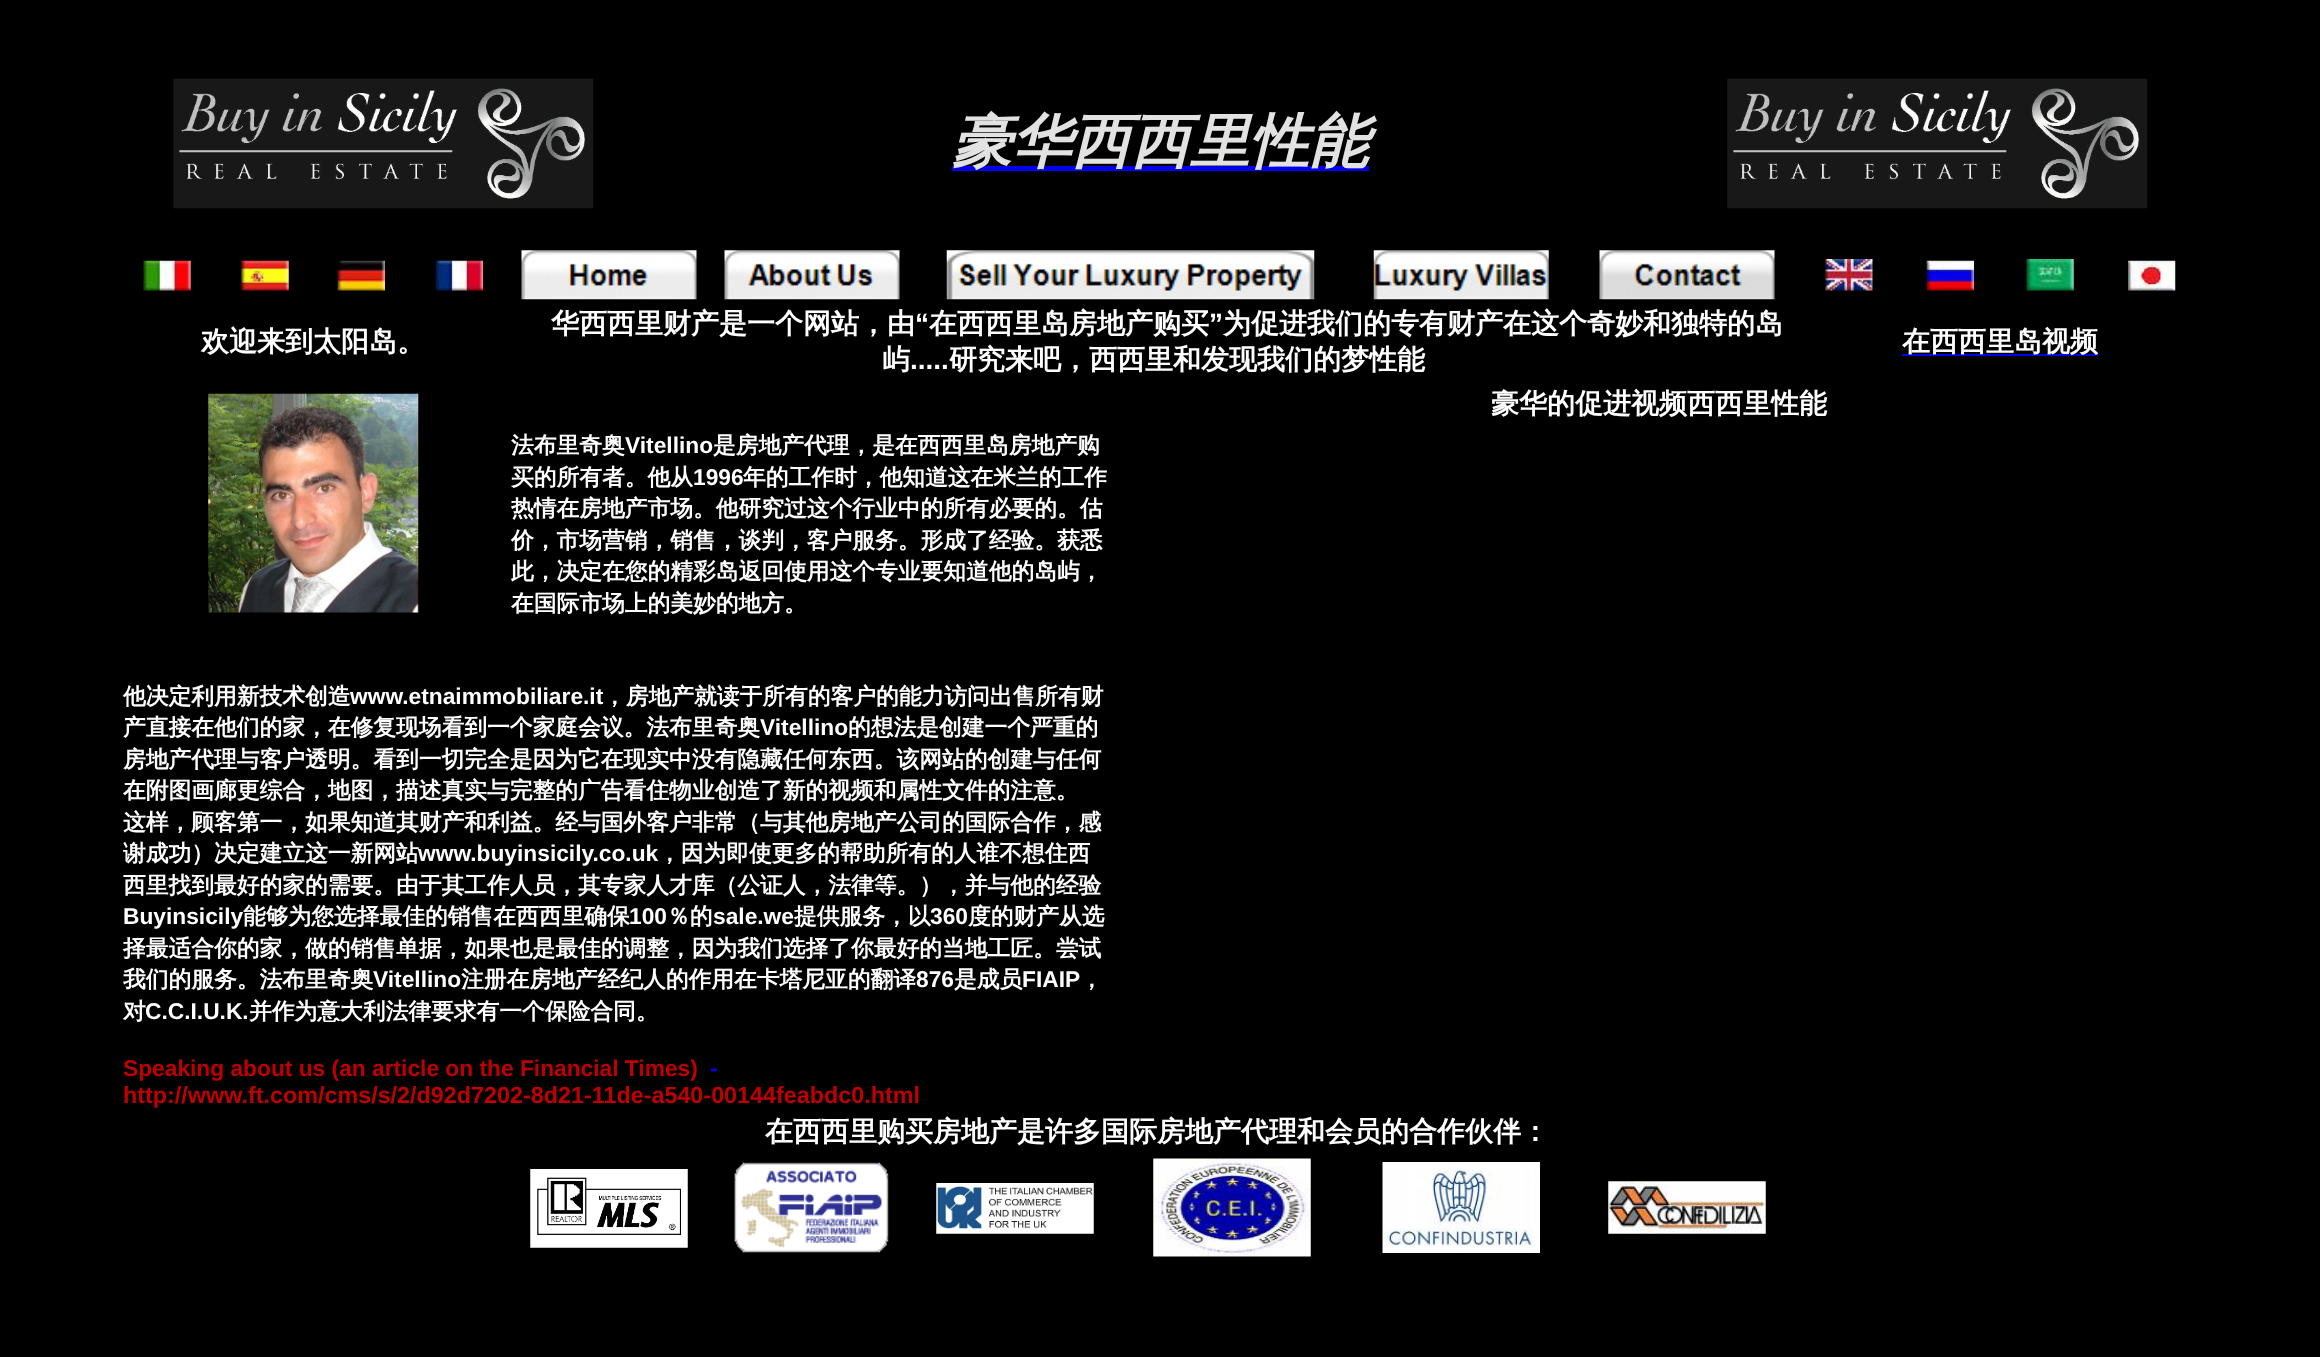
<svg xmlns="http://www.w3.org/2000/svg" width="2320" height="1357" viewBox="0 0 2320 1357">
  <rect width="100%" height="100%" fill="rgb(0,0,0)"/>
  <image x="173" y="78" width="421" height="131" href="pic1.png"/>
  <rect x="952" y="166" width="417" height="5" fill="rgb(0,0,238)"/>
  <text x="952" y="162" font-family="WenQuanYi Zen Hei" font-size="59.5" font-weight="bold" font-style="italic" fill="rgb(226,226,226)">豪华西西里性能</text>
  <image x="1727" y="78" width="421" height="131" href="pic1.png"/>
  <image x="143" y="260" width="48" height="31" href="pic2.png"/>
  <image x="241" y="260" width="48" height="31" href="pic3.png"/>
  <image x="337" y="260" width="48" height="31" href="pic4.png"/>
  <image x="435" y="260" width="48" height="31" href="pic5.png"/>
  <image x="521" y="250" width="176" height="50" href="pic6.png"/>
  <image x="724" y="250" width="176" height="50" href="pic7.png"/>
  <image x="946" y="250" width="369" height="50" href="pic8.png"/>
  <image x="1373" y="250" width="176" height="50" href="pic9.png"/>
  <image x="1599" y="250" width="176" height="50" href="pic10.png"/>
  <image x="1825" y="259" width="48" height="32" href="pic11.png"/>
  <image x="1926" y="260" width="48" height="31" href="pic12.png"/>
  <image x="2026" y="259" width="48" height="32" href="pic13.png"/>
  <image x="2128" y="260" width="48" height="31" href="pic14.png"/>
  <g font-family="WenQuanYi Zen Hei" font-size="28" font-weight="bold" fill="rgb(255,255,255)">
    <text x="201" y="351">欢迎来到太阳岛。</text>
    <text x="551" y="333">华西西里财产是一个网站，由</text>
  </g>
  <text x="915" y="333" font-family="Liberation Sans" font-size="28" font-weight="bold" fill="rgb(255,255,255)">“</text>
  <text x="929" y="333" font-family="WenQuanYi Zen Hei" font-size="28" font-weight="bold" fill="rgb(255,255,255)">在西西里岛房地产购买</text>
  <text x="1209" y="333" font-family="Liberation Sans" font-size="28" font-weight="bold" fill="rgb(255,255,255)">”</text>
  <g font-family="WenQuanYi Zen Hei" font-size="28" font-weight="bold" fill="rgb(255,255,255)">
    <text x="1223" y="333">为促进我们的专有财产在这个奇妙和独特的岛</text>
    <text x="882" y="369">屿</text>
  </g>
  <text x="910" y="369" font-family="Liberation Sans" font-size="28" font-weight="bold" fill="rgb(255,255,255)">.....</text>
  <text x="949" y="369" font-family="WenQuanYi Zen Hei" font-size="28" font-weight="bold" fill="rgb(255,255,255)">研究来吧，西西里和发现我们的梦性能</text>
  <rect x="1902" y="354" width="196" height="2" fill="rgb(0,0,238)"/>
  <text x="1902" y="351" font-family="WenQuanYi Zen Hei" font-size="28" font-weight="bold" fill="rgb(255,255,255)">在西西里岛视频</text>
  <image x="208" y="393" width="211" height="220" href="pic15.png"/>
  <text x="1491" y="413" font-family="WenQuanYi Zen Hei" font-size="28" font-weight="bold" fill="rgb(255,255,255)">豪华的促进视频西西里性能</text>
  <text x="511" y="453" font-family="WenQuanYi Zen Hei" font-size="22.75" font-weight="bold" fill="rgb(255,255,255)">法布里奇奥</text>
  <text x="625" y="453" font-family="Liberation Sans" font-size="22.75" font-weight="bold" fill="rgb(255,255,255)">Vitellino</text>
  <g font-family="WenQuanYi Zen Hei" font-size="22.75" font-weight="bold" fill="rgb(255,255,255)">
    <text x="713" y="453">是房地产代理，是在西西里岛房地产购</text>
    <text x="511" y="485">买的所有者。他从</text>
  </g>
  <text x="693" y="485" font-family="Liberation Sans" font-size="22.75" font-weight="bold" fill="rgb(255,255,255)">1996</text>
  <g font-family="WenQuanYi Zen Hei" font-size="22.75" font-weight="bold" fill="rgb(255,255,255)">
    <text x="743" y="485">年的工作时，他知道这在米兰的工作</text>
    <text>
      <tspan x="511" y="516">热情在房地产市场。他研究过这个行业中的所有必要的。估</tspan>
      <tspan x="511" y="548">价，市场营销，销售，谈判，客户服务。形成了经验。获悉</tspan>
      <tspan x="511" y="579">此，决定在您的精彩岛返回使用这个专业要知道他的岛屿，</tspan>
      <tspan x="511" y="611">在国际市场上的美妙的地方。</tspan>
    </text>
    <text x="123" y="704">他决定利用新技术创造</text>
  </g>
  <text x="350" y="704" font-family="Liberation Sans" font-size="22.75" font-weight="bold" fill="rgb(255,255,255)">www.etnaimmobiliare.it</text>
  <g font-family="WenQuanYi Zen Hei" font-size="22.75" font-weight="bold" fill="rgb(255,255,255)">
    <text x="603" y="704">，房地产就读于所有的客户的能力访问出售所有财</text>
    <text x="123" y="735">产直接在他们的家，在修复现场看到一个家庭会议。法布里奇奥</text>
  </g>
  <text x="760" y="735" font-family="Liberation Sans" font-size="22.75" font-weight="bold" fill="rgb(255,255,255)">Vitellino</text>
  <g font-family="WenQuanYi Zen Hei" font-size="22.75" font-weight="bold" fill="rgb(255,255,255)">
    <text x="848" y="735">的想法是创建一个严重的</text>
    <text>
      <tspan x="123" y="767">房地产代理与客户透明。看到一切完全是因为它在现实中没有隐藏任何东西。该网站的创建与任何</tspan>
      <tspan x="123" y="798">在附图画廊更综合，地图，描述真实与完整的广告看住物业创造了新的视频和属性文件的注意。</tspan>
      <tspan x="123" y="830">这样，顾客第一，如果知道其财产和利益。经与国外客户非常（与其他房地产公司的国际合作，感</tspan>
      <tspan x="123" y="861">谢成功）决定建立这一新网站</tspan>
    </text>
  </g>
  <text x="418" y="861" font-family="Liberation Sans" font-size="22.75" font-weight="bold" fill="rgb(255,255,255)">www.buyinsicily.co.uk</text>
  <g font-family="WenQuanYi Zen Hei" font-size="22.75" font-weight="bold" fill="rgb(255,255,255)">
    <text x="658" y="861">，因为即使更多的帮助所有的人谁不想住西</text>
    <text x="123" y="893">西里找到最好的家的需要。由于其工作人员，其专家人才库（公证人，法律等。），并与他的经验</text>
  </g>
  <text x="123" y="924" font-family="Liberation Sans" font-size="22.75" font-weight="bold" fill="rgb(255,255,255)">Buyinsicily</text>
  <text x="243" y="924" font-family="WenQuanYi Zen Hei" font-size="22.75" font-weight="bold" fill="rgb(255,255,255)">能够为您选择最佳的销售在西西里确保</text>
  <text x="629" y="924" font-family="Liberation Sans" font-size="22.75" font-weight="bold" fill="rgb(255,255,255)">100</text>
  <text x="667" y="924" font-family="WenQuanYi Zen Hei" font-size="22.75" font-weight="bold" fill="rgb(255,255,255)">％的</text>
  <text x="713" y="924" font-family="Liberation Sans" font-size="22.75" font-weight="bold" fill="rgb(255,255,255)">sale.we</text>
  <text x="794" y="924" font-family="WenQuanYi Zen Hei" font-size="22.75" font-weight="bold" fill="rgb(255,255,255)">提供服务，以</text>
  <text x="930" y="924" font-family="Liberation Sans" font-size="22.75" font-weight="bold" fill="rgb(255,255,255)">360</text>
  <g font-family="WenQuanYi Zen Hei" font-size="22.75" font-weight="bold" fill="rgb(255,255,255)">
    <text x="968" y="924">度的财产从选</text>
    <text>
      <tspan x="123" y="956">择最适合你的家，做的销售单据，如果也是最佳的调整，因为我们选择了你最好的当地工匠。尝试</tspan>
      <tspan x="123" y="987">我们的服务。法布里奇奥</tspan>
    </text>
  </g>
  <text x="373" y="987" font-family="Liberation Sans" font-size="22.75" font-weight="bold" fill="rgb(255,255,255)">Vitellino</text>
  <text x="461" y="987" font-family="WenQuanYi Zen Hei" font-size="22.75" font-weight="bold" fill="rgb(255,255,255)">注册在房地产经纪人的作用在卡塔尼亚的翻译</text>
  <text x="916" y="987" font-family="Liberation Sans" font-size="22.75" font-weight="bold" fill="rgb(255,255,255)">876</text>
  <text x="954" y="987" font-family="WenQuanYi Zen Hei" font-size="22.75" font-weight="bold" fill="rgb(255,255,255)">是成员</text>
  <text x="1022" y="987" font-family="Liberation Sans" font-size="22.75" font-weight="bold" fill="rgb(255,255,255)">FIAIP</text>
  <g font-family="WenQuanYi Zen Hei" font-size="22.75" font-weight="bold" fill="rgb(255,255,255)">
    <text x="1080" y="987">，</text>
    <text x="123" y="1019">对</text>
  </g>
  <text x="145" y="1019" font-family="Liberation Sans" font-size="22.75" font-weight="bold" fill="rgb(255,255,255)">C.C.I.U.K.</text>
  <text x="249" y="1019" font-family="WenQuanYi Zen Hei" font-size="22.75" font-weight="bold" fill="rgb(255,255,255)">并作为意大利法律要求有一个保险合同。</text>
  <text x="123" y="1076" font-family="Liberation Sans" font-size="22.75" font-weight="bold" fill="rgb(192,0,0)">Speaking about us (an article on the Financial Times)</text>
  <text x="710" y="1076" font-family="Liberation Sans" font-size="23.35" font-weight="bold" fill="rgb(0,0,238)">-</text>
  <text x="123" y="1103" font-family="Liberation Sans" font-size="23.35" font-weight="bold" fill="rgb(192,0,0)">http://www.ft.com/cms/s/2/d92d7202-8d21-11de-a540-00144feabdc0.html</text>
  <text x="765" y="1141" font-family="WenQuanYi Zen Hei" font-size="28" font-weight="bold" fill="rgb(255,255,255)">在西西里购买房地产是许多国际房地产代理和会员的合作伙伴：</text>
  <image x="530" y="1169" width="158" height="79" href="pic16.png"/>
  <image x="734" y="1162" width="155" height="91" href="pic17.png"/>
  <image x="936" y="1183" width="158" height="51" href="pic18.png"/>
  <image x="1153" y="1158" width="158" height="99" href="pic19.png"/>
  <image x="1382" y="1162" width="158" height="91" href="pic20.png"/>
  <image x="1608" y="1181" width="158" height="53" href="pic21.png"/>
</svg>
